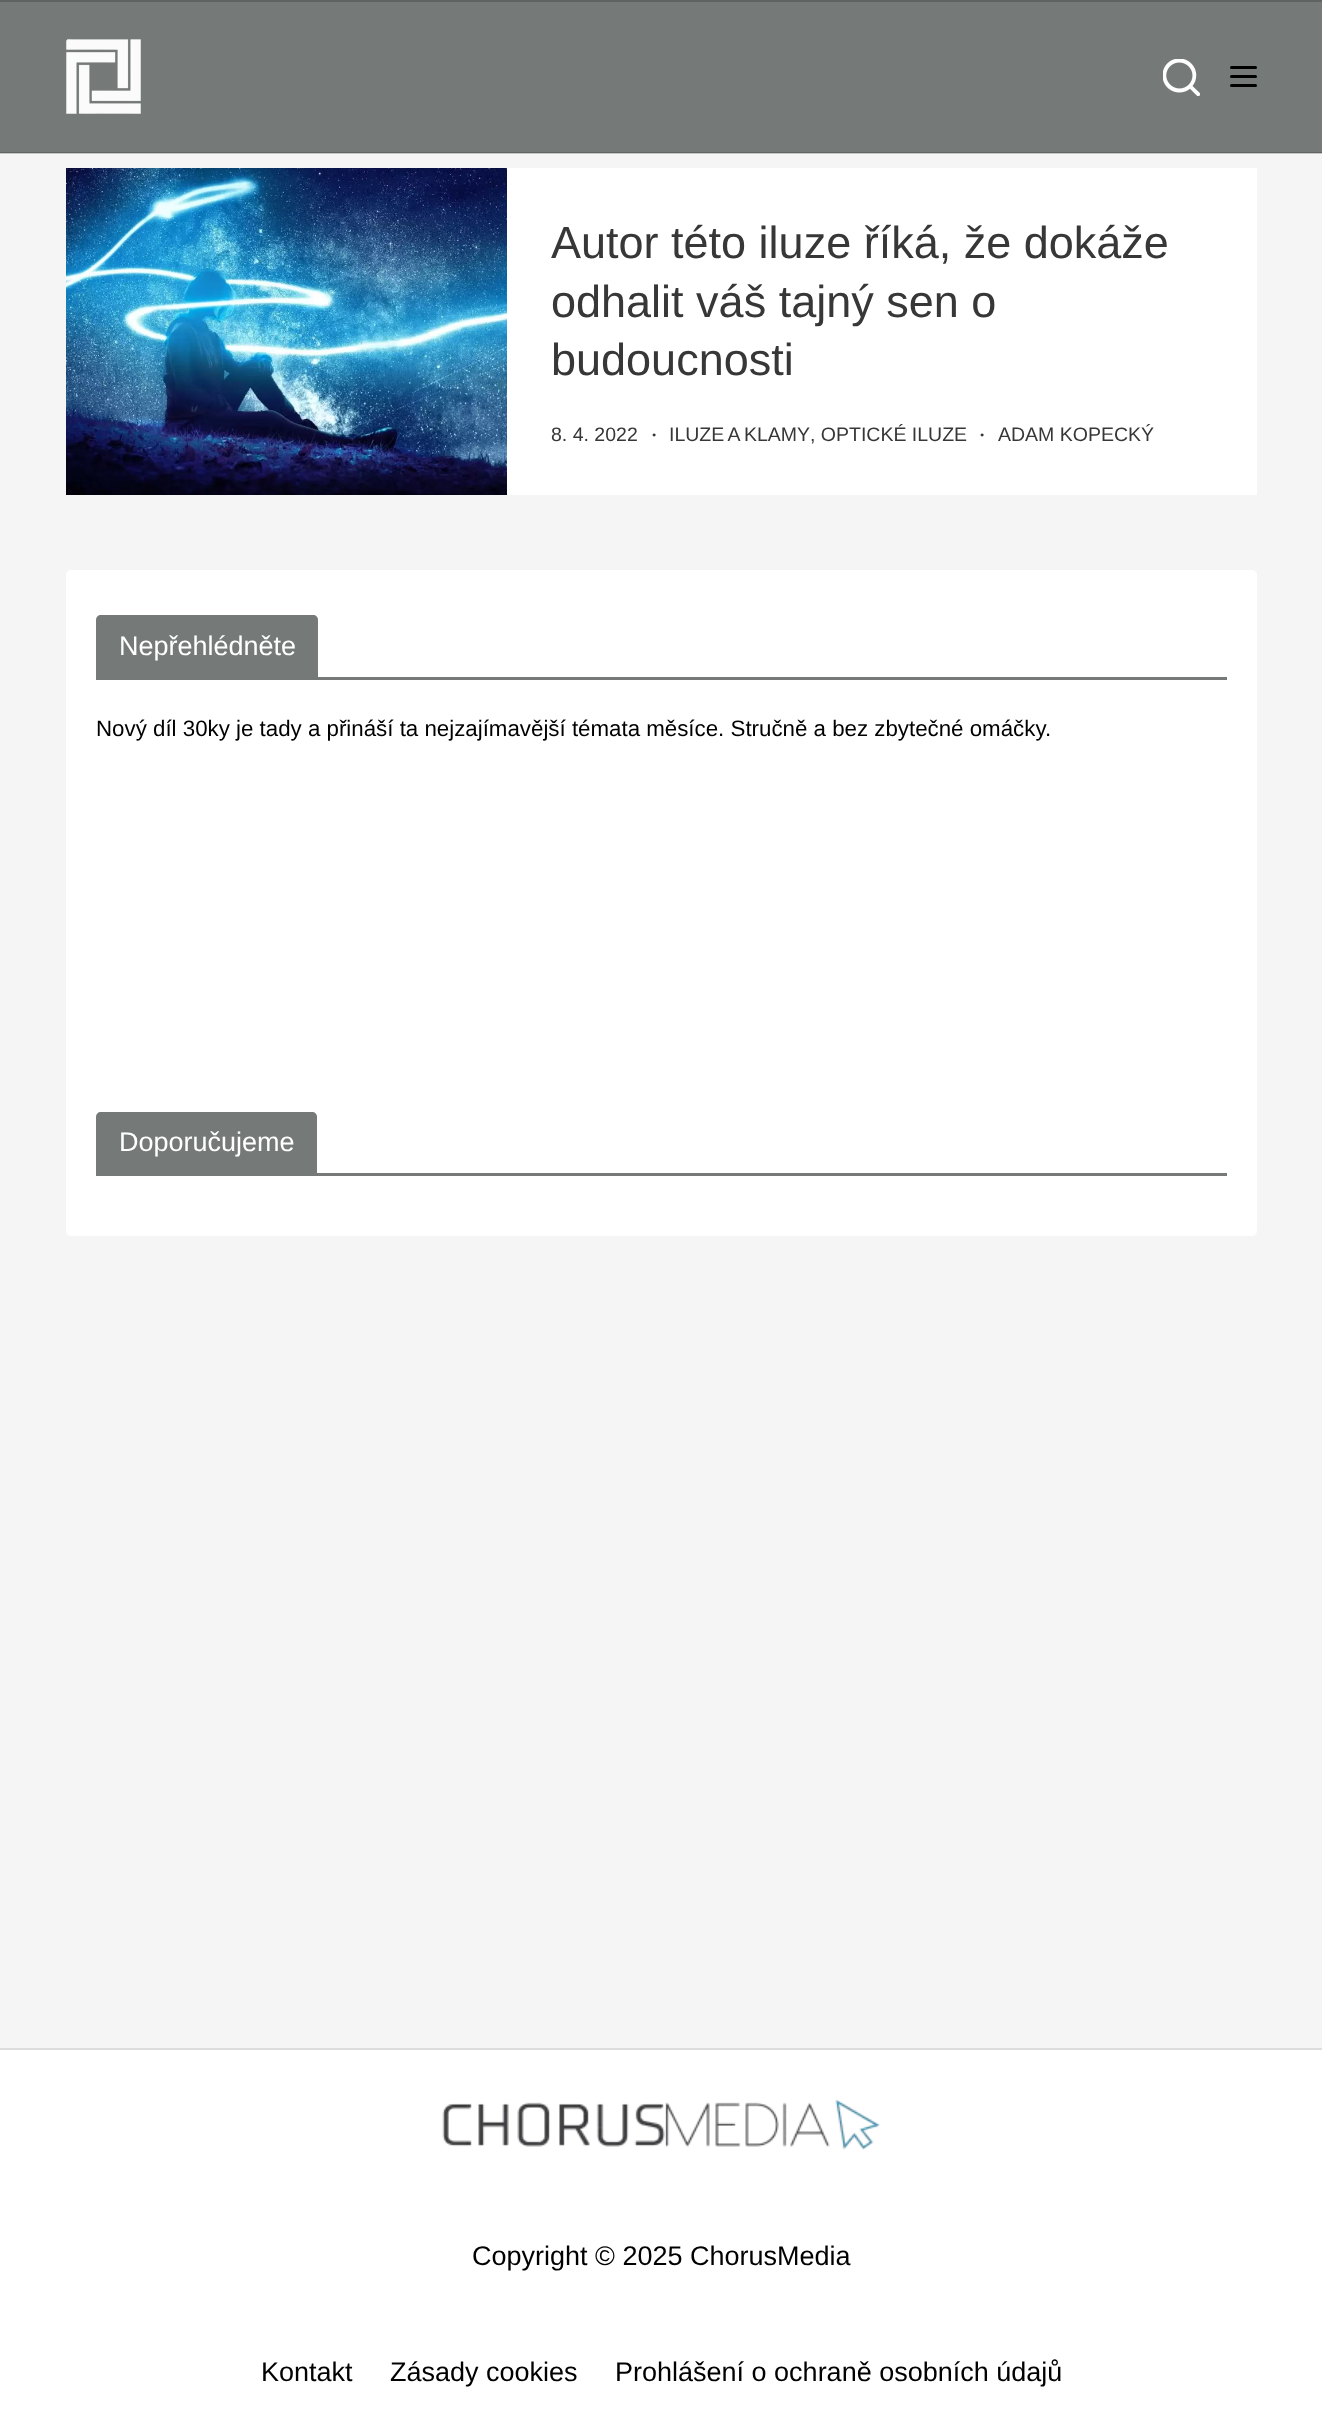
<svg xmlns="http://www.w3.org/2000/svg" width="1322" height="2436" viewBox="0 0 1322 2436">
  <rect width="100%" height="100%" fill="rgb(245,245,245)"/>
  <rect x="0" y="153" width="1322" height="1" fill="rgb(198,198,198)"/>
  <rect x="0" y="2" width="1322" height="150" fill="rgb(117,122,121)"/>
  <rect x="0" y="152" width="1322" height="1" fill="rgb(95,99,98)"/>
  <rect x="0" y="0" width="1322" height="2" fill="rgb(95,99,98)"/>
  <image x="66" y="39" width="75" height="75" href="pic1.png"/>
  <image x="1163" y="59" width="37" height="37" href="pic2.png"/>
  <rect x="1230" y="66" width="27" height="3" rx="1.5" fill="rgb(0,0,0)"/>
  <rect x="1230" y="75" width="27" height="3" rx="1.5" fill="rgb(0,0,0)"/>
  <rect x="1230" y="84" width="27" height="3" rx="1.5" fill="rgb(0,0,0)"/>
  <rect x="507" y="168" width="750" height="327" fill="rgb(255,255,255)"/>
  <image x="66" y="168" width="441" height="327" href="pic3.png"/>
  <g font-family="Liberation Sans" font-size="45" fill="rgb(55,55,55)">
    <text>
      <tspan x="551" y="258">Autor této iluze říká, že dokáže</tspan>
      <tspan x="551" y="317">odhalit váš tajný sen o</tspan>
      <tspan x="551" y="375">budoucnosti</tspan>
    </text>
  </g>
  <text x="551" y="441" font-family="Liberation Sans" font-size="19.5" fill="rgb(55,55,55)">8. 4. 2022</text>
  <text x="652" y="437" font-family="Liberation Sans" font-size="7" fill="rgb(55,55,55)">●</text>
  <g font-family="Liberation Sans" font-size="19.5" fill="rgb(55,55,55)">
    <text x="669" y="441" word-spacing="-1">ILUZE A KLAMY</text>
    <text x="810" y="441">, OPTICKÉ ILUZE</text>
  </g>
  <text x="980" y="437" font-family="Liberation Sans" font-size="7" fill="rgb(55,55,55)">●</text>
  <text x="998" y="441" font-family="Liberation Sans" font-size="19.5" fill="rgb(55,55,55)">ADAM KOPECKÝ</text>
  <rect x="66" y="570" width="1191" height="666" rx="5" fill="rgb(255,255,255)"/>
  <rect x="96" y="677" width="1131" height="3" fill="rgb(117,122,121)"/>
  <path d="M101 615H313C316 615 318 617 318 620V677H96V620C96 617 98 615 101 615Z" fill="rgb(117,122,121)"/>
  <text x="119" y="655" font-family="Liberation Sans" font-size="27" fill="rgb(255,255,255)">Nepřehlédněte</text>
  <text x="96" y="736" font-family="Liberation Sans" font-size="22.3" fill="rgb(0,0,0)">Nový díl 30ky je tady a přináší ta nejzajímavější témata měsíce. Stručně a bez zbytečné omáčky.</text>
  <rect x="96" y="1173" width="1131" height="3" fill="rgb(117,122,121)"/>
  <path d="M101 1112H312C315 1112 317 1114 317 1117V1173H96V1117C96 1114 98 1112 101 1112Z" fill="rgb(117,122,121)"/>
  <text x="119" y="1151" font-family="Liberation Sans" font-size="27" fill="rgb(255,255,255)">Doporučujeme</text>
  <rect x="0" y="2050" width="1322" height="386" fill="rgb(255,255,255)"/>
  <rect x="0" y="2048" width="1322" height="2" fill="rgb(221,221,221)"/>
  <image x="442" y="2099" width="438" height="51" href="pic4.png"/>
  <g font-family="Liberation Sans" font-size="27" fill="rgb(0,0,0)">
    <text x="472" y="2265">Copyright © 2025 ChorusMedia</text>
    <text x="261" y="2381">Kontakt</text>
    <text x="390" y="2381">Zásady cookies</text>
    <text x="615" y="2381">Prohlášení o ochraně osobních údajů</text>
  </g>
</svg>
